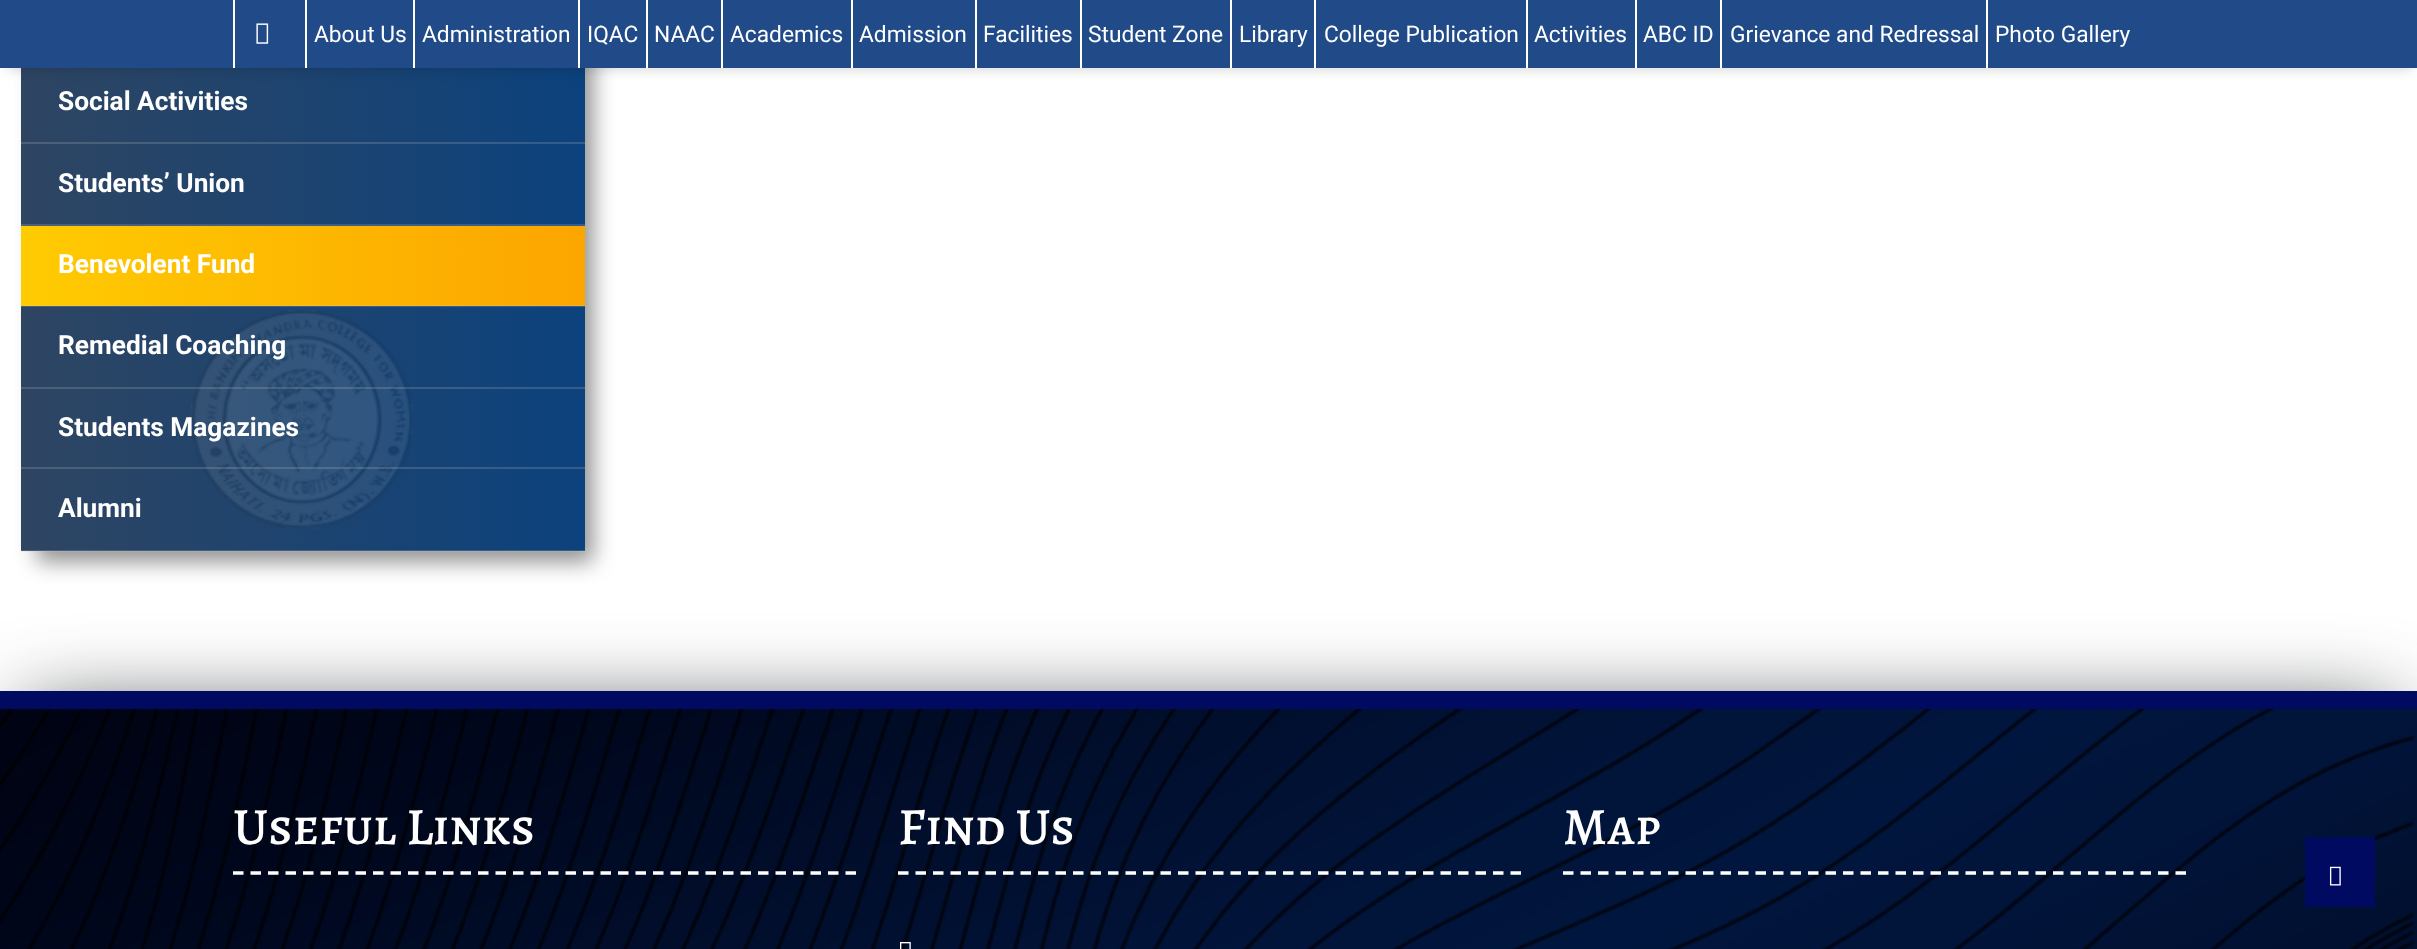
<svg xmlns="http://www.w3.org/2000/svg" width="2417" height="949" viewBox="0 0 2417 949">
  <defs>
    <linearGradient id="g1" gradientUnits="userSpaceOnUse" x1="21" y1="266" x2="585" y2="266"><stop offset="0" stop-color="rgb(46,69,98)"/><stop offset="1" stop-color="rgb(12,66,125)"/></linearGradient>
    <linearGradient id="g2" gradientUnits="userSpaceOnUse" x1="21" y1="265" x2="585" y2="265"><stop offset="0" stop-color="rgb(255,203,1)"/><stop offset="1" stop-color="rgb(252,165,0)"/></linearGradient>
  </defs>
  <rect width="100%" height="100%" fill="rgb(255,255,255)"/>
  <rect x="37" y="-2" width="556" height="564" fill="rgba(0,0,0,0.43)" filter="blur(10.5px)"/>
  <rect x="21" y="68" width="564" height="483" fill="url(#g1)"/>
  <rect x="7" y="16" width="2405" height="54" fill="rgba(0,0,0,0.15)" filter="blur(6px)"/>
  <rect x="0" y="0" width="2417" height="68" fill="rgb(32,75,136)"/>
  <rect x="233" y="0" width="2" height="68" fill="rgb(255,255,255)"/>
  <image x="256" y="23" width="13" height="21" href="pic1.png"/>
  <rect x="305" y="0" width="2" height="68" fill="rgb(255,255,255)"/>
  <text x="314" y="42" font-family="Roboto" font-size="22.75" fill="rgb(255,255,255)">About Us</text>
  <rect x="413" y="0" width="2" height="68" fill="rgb(255,255,255)"/>
  <text x="422" y="42" font-family="Roboto" font-size="22.75" fill="rgb(255,255,255)">Administration</text>
  <rect x="578" y="0" width="2" height="68" fill="rgb(255,255,255)"/>
  <text x="587" y="42" font-family="Roboto" font-size="22.75" fill="rgb(255,255,255)">IQAC</text>
  <rect x="646" y="0" width="2" height="68" fill="rgb(255,255,255)"/>
  <text x="654" y="42" font-family="Roboto" font-size="22.75" fill="rgb(255,255,255)">NAAC</text>
  <rect x="721" y="0" width="2" height="68" fill="rgb(255,255,255)"/>
  <text x="730" y="42" font-family="Roboto" font-size="22.75" fill="rgb(255,255,255)">Academics</text>
  <rect x="851" y="0" width="2" height="68" fill="rgb(255,255,255)"/>
  <text x="859" y="42" font-family="Roboto" font-size="22.75" fill="rgb(255,255,255)">Admission</text>
  <rect x="975" y="0" width="2" height="68" fill="rgb(255,255,255)"/>
  <text x="983" y="42" font-family="Roboto" font-size="22.75" fill="rgb(255,255,255)">Facilities</text>
  <rect x="1080" y="0" width="2" height="68" fill="rgb(255,255,255)"/>
  <text x="1088" y="42" font-family="Roboto" font-size="22.75" fill="rgb(255,255,255)">Student Zone</text>
  <rect x="1230" y="0" width="2" height="68" fill="rgb(255,255,255)"/>
  <text x="1239" y="42" font-family="Roboto" font-size="22.75" fill="rgb(255,255,255)">Library</text>
  <rect x="1314" y="0" width="2" height="68" fill="rgb(255,255,255)"/>
  <text x="1324" y="42" font-family="Roboto" font-size="22.75" fill="rgb(255,255,255)">College Publication</text>
  <rect x="1526" y="0" width="2" height="68" fill="rgb(255,255,255)"/>
  <text x="1534" y="42" font-family="Roboto" font-size="22.75" fill="rgb(255,255,255)">Activities</text>
  <rect x="1635" y="0" width="2" height="68" fill="rgb(255,255,255)"/>
  <text x="1643" y="42" font-family="Roboto" font-size="22.75" fill="rgb(255,255,255)">ABC ID</text>
  <rect x="1720" y="0" width="2" height="68" fill="rgb(255,255,255)"/>
  <text x="1730" y="42" font-family="Roboto" font-size="22.75" fill="rgb(255,255,255)">Grievance and Redressal</text>
  <rect x="1986" y="0" width="2" height="68" fill="rgb(255,255,255)"/>
  <text x="1995" y="42" font-family="Roboto" font-size="22.75" fill="rgb(255,255,255)">Photo Gallery</text>
  <image x="191" y="310" width="222" height="219" href="pic2.png"/>
  <rect x="21" y="142" width="564" height="2" fill="rgba(204,204,204,0.2)"/>
  <text x="58" y="110" font-family="Roboto" font-size="26.25" font-weight="bold" fill="rgb(255,255,255)">Social Activities</text>
  <rect x="21" y="224" width="564" height="2" fill="rgba(204,204,204,0.2)"/>
  <text x="58" y="192" font-family="Roboto" font-size="26.25" font-weight="bold" fill="rgb(255,255,255)">Students’ Union</text>
  <rect x="21" y="226" width="564" height="80" fill="url(#g2)"/>
  <rect x="21" y="305" width="564" height="2" fill="rgba(204,204,204,0.2)"/>
  <text x="58" y="273" font-family="Roboto" font-size="26.25" font-weight="bold" fill="rgb(255,255,255)">Benevolent Fund</text>
  <rect x="21" y="387" width="564" height="2" fill="rgba(204,204,204,0.2)"/>
  <text x="58" y="354" font-family="Roboto" font-size="26.25" font-weight="bold" fill="rgb(255,255,255)">Remedial Coaching</text>
  <rect x="21" y="467" width="564" height="2" fill="rgba(204,204,204,0.2)"/>
  <text x="58" y="436" font-family="Roboto" font-size="26.25" font-weight="bold" fill="rgb(255,255,255)">Students Magazines</text>
  <rect x="21" y="550" width="564" height="2" fill="rgba(204,204,204,0.2)"/>
  <text x="58" y="517" font-family="Roboto" font-size="26.25" font-weight="bold" fill="rgb(255,255,255)">Alumni</text>
  <rect x="26" y="718" width="2366" height="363" fill="rgb(33,37,41)" filter="blur(44px)"/>
  <image x="0" y="709" width="2417" height="240" href="pic3.png"/>
  <rect x="0" y="691" width="2417" height="18" fill="rgb(0,10,96)"/>
  <path d="M233 873H856" fill="none" stroke="rgb(255,255,255)" stroke-width="3.5" stroke-dasharray="10.5 7"/>
  <text x="233" y="844" font-family="Alegreya SC" font-size="52.5" font-weight="500" fill="rgb(255,255,255)">Useful Links</text>
  <path d="M898 873H1521" fill="none" stroke="rgb(255,255,255)" stroke-width="3.5" stroke-dasharray="10.5 7"/>
  <text x="898" y="844" font-family="Alegreya SC" font-size="52.5" font-weight="500" fill="rgb(255,255,255)">Find Us</text>
  <image x="900" y="942" width="11" height="7" href="pic4.png"/>
  <path d="M1563 873H2186" fill="none" stroke="rgb(255,255,255)" stroke-width="3.5" stroke-dasharray="10.5 7"/>
  <text x="1563" y="844" font-family="Alegreya SC" font-size="52.5" font-weight="500" fill="rgb(255,255,255)">Map</text>
  <rect x="2305" y="837" width="70" height="70" fill="rgb(0,10,96)"/>
  <image x="2329" y="866" width="12" height="20" href="pic5.png"/>
</svg>
